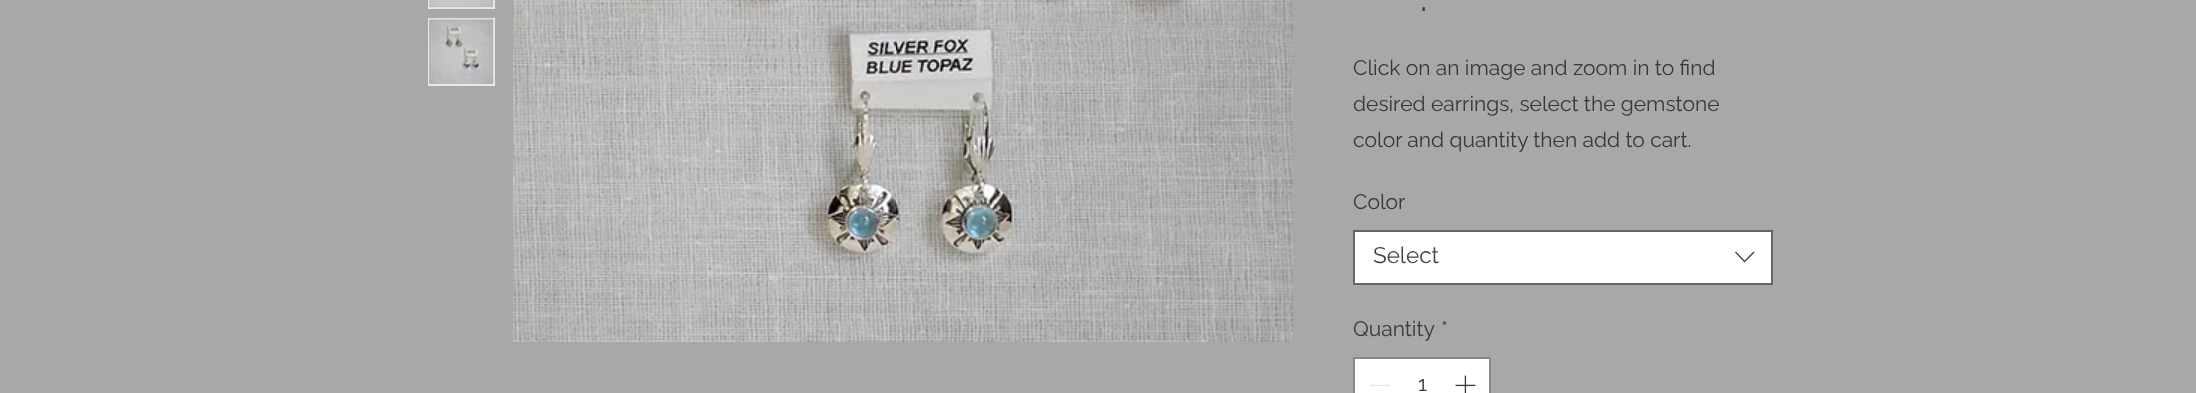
<svg xmlns="http://www.w3.org/2000/svg" width="2196" height="393" viewBox="0 0 2196 393">
  <rect width="100%" height="100%" fill="rgb(168,168,168)"/>
  <rect x="429" y="-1" width="65" height="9" fill="none" stroke="rgb(233,233,233)" stroke-width="2"/>
  <image x="429" y="0" width="65" height="8" href="pic1.png"/>
  <rect x="429" y="19" width="65" height="66" fill="none" stroke="rgb(233,233,233)" stroke-width="2"/>
  <image x="429" y="18" width="65" height="66" href="pic2.png"/>
  <image x="513" y="0" width="780" height="342" href="pic3.png"/>
  <text x="1420" y="11" font-family="Raleway" font-size="39" fill="rgb(56,56,56)">.</text>
  <g font-family="Raleway" font-size="21" fill="rgb(56,56,56)">
    <text>
      <tspan x="1353" y="75">Click on an image and zoom in to find</tspan>
      <tspan x="1353" y="111">desired earrings, select the gemstone</tspan>
      <tspan x="1353" y="147">color and quantity then add to cart.</tspan>
    </text>
    <text x="1353" y="209">Color</text>
  </g>
  <rect x="1354" y="231" width="418" height="53" fill="rgb(255,255,255)" stroke="rgb(102,102,102)" stroke-width="2"/>
  <text x="1373" y="263" font-family="Raleway" font-size="22.5" fill="rgb(68,68,68)">Select</text>
  <path d="M1753.5 251.5L1754.5 252.5L1744.5 262.5L1735 252.5L1736 251.5L1744.5 260.5Z" fill="rgb(68,68,68)" fill-rule="evenodd"/>
  <g font-family="Raleway" font-size="21" fill="rgb(56,56,56)">
    <text x="1353" y="336">Quantity</text>
    <text x="1441" y="336">*</text>
  </g>
  <rect x="1354" y="358" width="136" height="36" fill="rgb(255,255,255)" stroke="rgb(136,136,136)" stroke-width="2"/>
  <rect x="1370" y="385" width="20" height="1" fill="rgb(227,227,227)"/>
  <text x="1418" y="391" font-family="Raleway" font-size="21" fill="rgb(56,56,56)">1</text>
  <image x="1455" y="375" width="21" height="18" href="pic4.png"/>
</svg>
